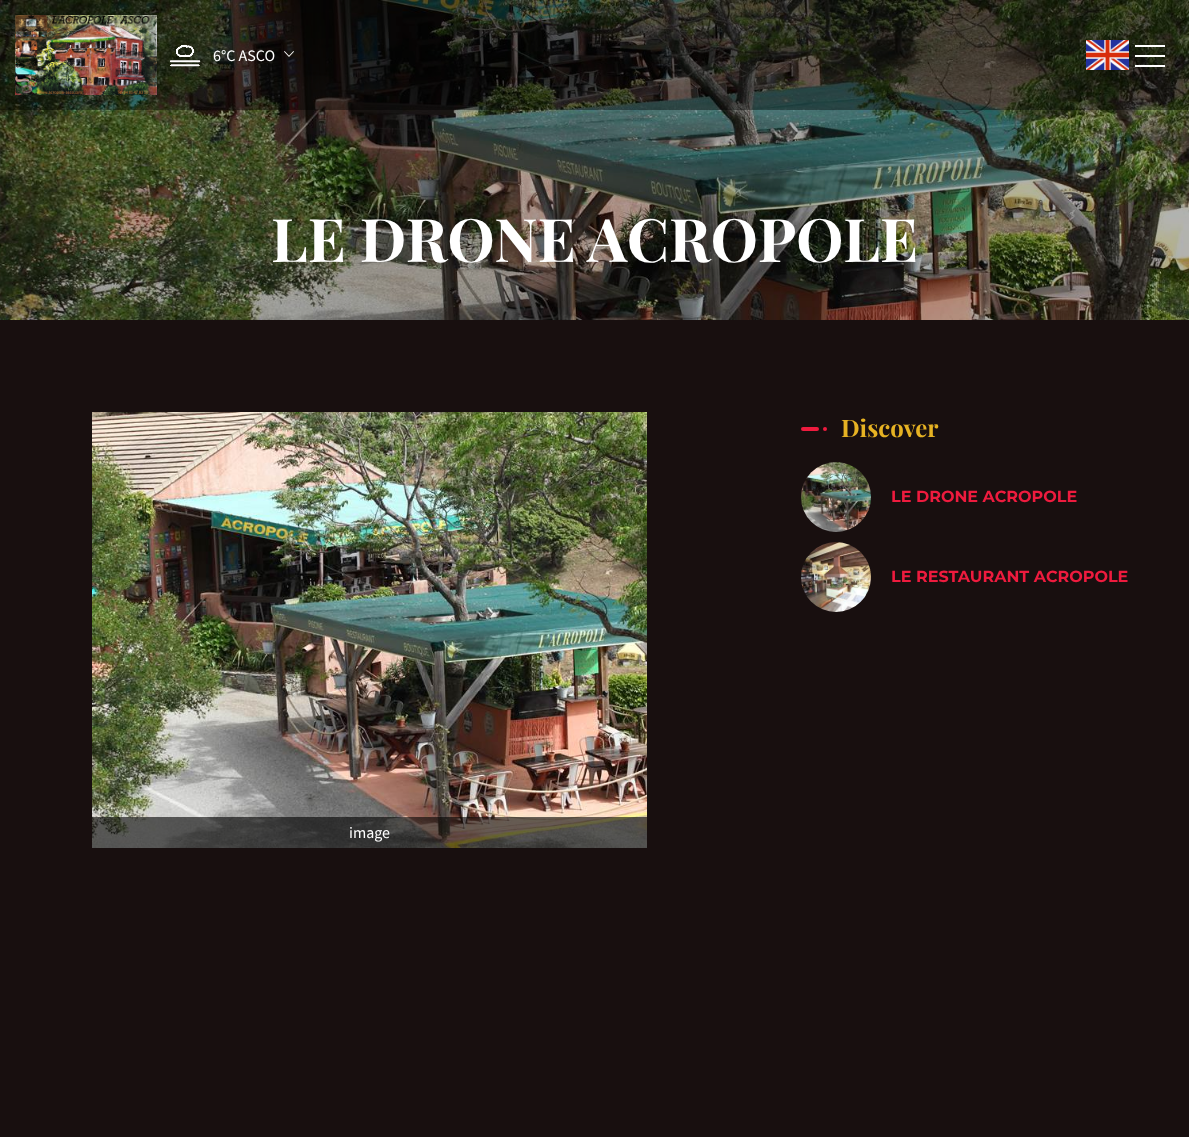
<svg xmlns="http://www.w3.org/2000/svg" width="1189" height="1137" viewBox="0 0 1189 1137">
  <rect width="100%" height="100%" fill="rgb(24,15,15)"/>
  <image x="0" y="0" width="1189" height="320" href="pic5.png"/>
  <rect x="0" y="0" width="1189" height="110" fill="rgba(0,0,0,0.4)"/>
  <image x="15" y="15" width="142" height="80" href="pic1.png"/>
  <image x="170" y="45" width="31" height="22" href="pic2.png"/>
  <text x="213" y="61" font-family="Source Sans Pro" font-size="16" fill="rgb(255,255,255)">6°C ASCO</text>
  <image x="284" y="51" width="10" height="6" href="pic3.png"/>
  <image x="1086" y="40" width="43" height="30" href="pic4.png"/>
  <rect x="1135" y="45" width="30" height="2" fill="rgb(255,255,255)"/>
  <rect x="1135" y="55" width="30" height="2" fill="rgb(255,255,255)"/>
  <rect x="1135" y="65" width="30" height="2" fill="rgb(255,255,255)"/>
  <text x="271" y="262" font-family="Playfair Display" font-size="60" font-weight="bold" fill="rgb(255,255,255)">LE DRONE ACROPOLE</text>
  <rect x="801" y="427" width="18" height="4" rx="2" fill="rgb(238,27,62)"/>
  <circle cx="825" cy="429" r="2" fill="rgb(238,27,62)"/>
  <text x="841" y="437" font-family="Playfair Display" font-size="24" font-weight="bold" fill="rgb(230,178,35)">Discover</text>
  <image x="801" y="462" width="70" height="70" href="pic6.png"/>
  <text x="891" y="502" font-family="Montserrat" font-size="16" font-weight="bold" fill="rgb(238,27,62)">LE DRONE ACROPOLE</text>
  <image x="801" y="542" width="70" height="70" href="pic7.png"/>
  <text x="891" y="582" font-family="Montserrat" font-size="16" font-weight="bold" fill="rgb(238,27,62)">LE RESTAURANT ACROPOLE</text>
  <image x="92" y="412" width="555" height="436" href="pic8.png"/>
  <rect x="92" y="817" width="555" height="31" fill="rgba(0,0,0,0.6)"/>
  <text x="349" y="838" font-family="Source Sans Pro" font-size="16" fill="rgb(255,255,255)">image</text>
</svg>
